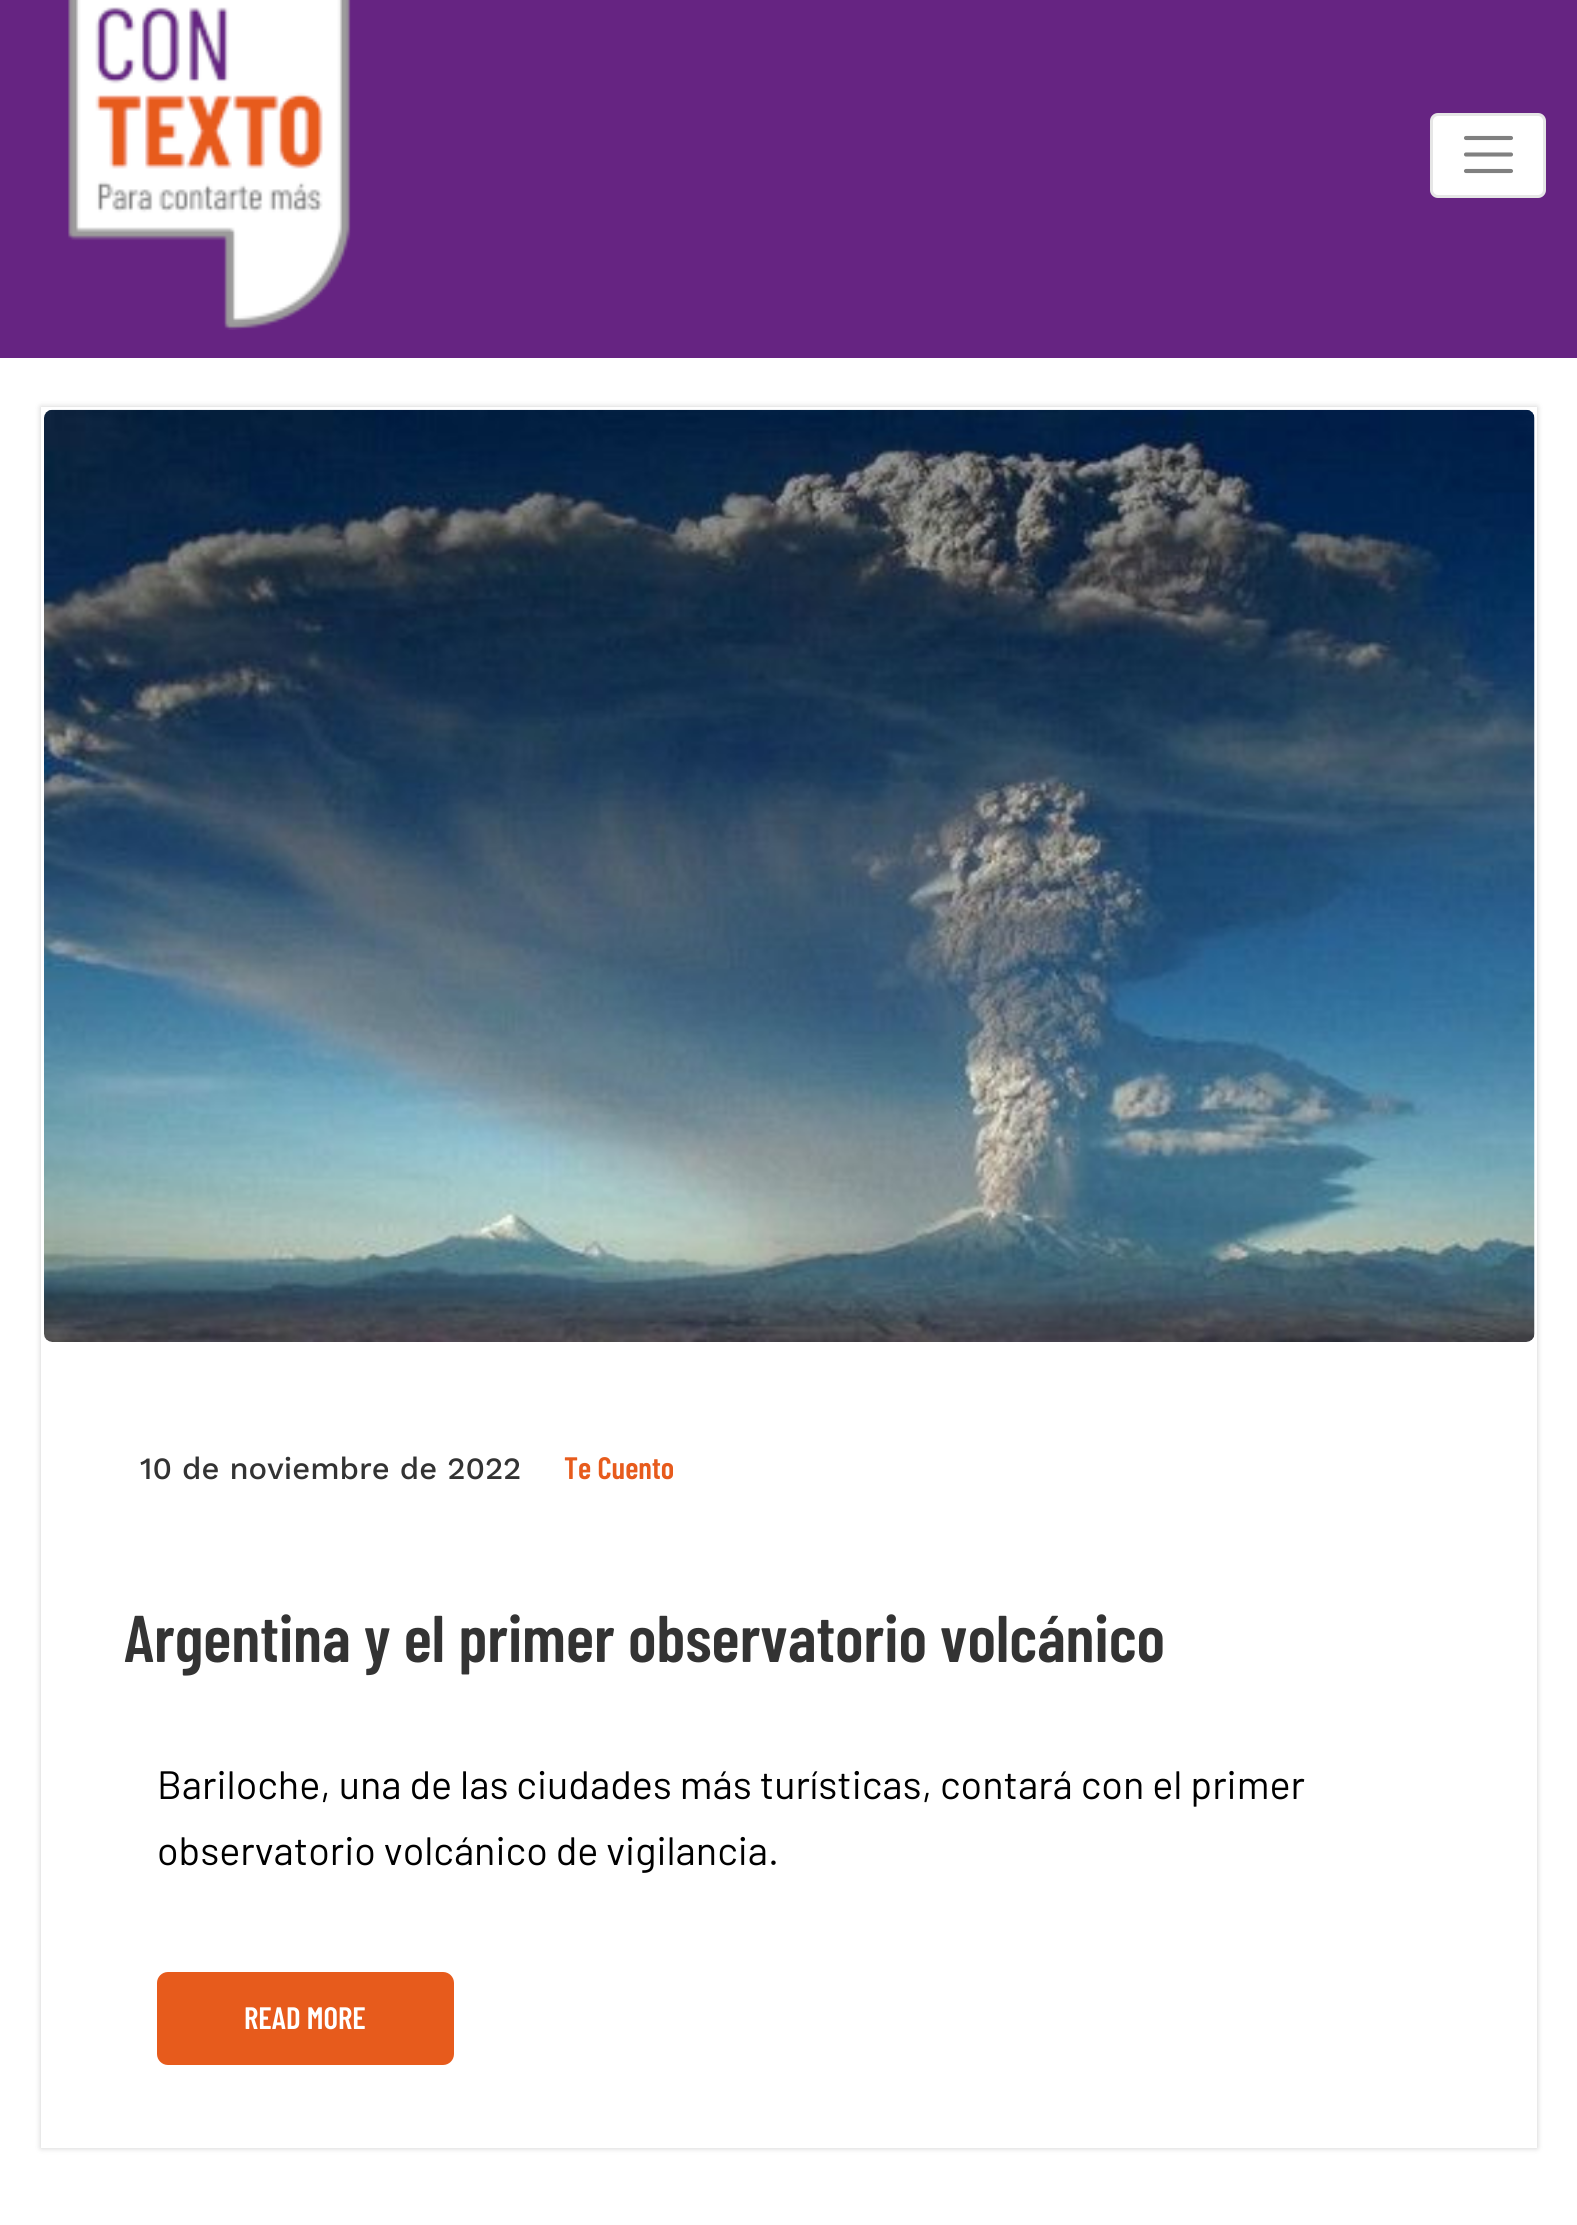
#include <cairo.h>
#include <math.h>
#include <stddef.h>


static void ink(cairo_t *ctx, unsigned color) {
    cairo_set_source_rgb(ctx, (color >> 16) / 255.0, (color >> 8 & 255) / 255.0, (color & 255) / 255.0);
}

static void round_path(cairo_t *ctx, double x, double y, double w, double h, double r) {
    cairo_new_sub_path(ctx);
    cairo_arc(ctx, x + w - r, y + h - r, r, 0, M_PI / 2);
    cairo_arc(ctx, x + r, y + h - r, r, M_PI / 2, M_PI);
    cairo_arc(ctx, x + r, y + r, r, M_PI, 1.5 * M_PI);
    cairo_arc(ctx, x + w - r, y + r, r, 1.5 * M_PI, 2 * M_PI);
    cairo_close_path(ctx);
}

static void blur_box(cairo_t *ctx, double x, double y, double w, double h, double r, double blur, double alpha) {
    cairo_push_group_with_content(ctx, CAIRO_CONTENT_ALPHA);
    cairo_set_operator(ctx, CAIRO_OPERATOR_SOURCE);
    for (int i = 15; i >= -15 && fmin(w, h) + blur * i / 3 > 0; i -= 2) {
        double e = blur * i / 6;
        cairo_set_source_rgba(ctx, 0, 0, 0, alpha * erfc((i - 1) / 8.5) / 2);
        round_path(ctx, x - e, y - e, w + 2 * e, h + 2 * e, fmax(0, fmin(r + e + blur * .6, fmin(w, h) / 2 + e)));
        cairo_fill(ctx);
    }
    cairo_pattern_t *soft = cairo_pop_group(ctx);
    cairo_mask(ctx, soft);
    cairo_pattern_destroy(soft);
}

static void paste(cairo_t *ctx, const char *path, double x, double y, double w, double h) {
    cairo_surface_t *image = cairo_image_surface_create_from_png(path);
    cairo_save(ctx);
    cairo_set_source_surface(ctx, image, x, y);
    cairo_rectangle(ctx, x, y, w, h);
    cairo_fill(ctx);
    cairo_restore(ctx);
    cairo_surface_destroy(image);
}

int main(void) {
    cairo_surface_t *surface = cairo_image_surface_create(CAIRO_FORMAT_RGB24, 1577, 2225);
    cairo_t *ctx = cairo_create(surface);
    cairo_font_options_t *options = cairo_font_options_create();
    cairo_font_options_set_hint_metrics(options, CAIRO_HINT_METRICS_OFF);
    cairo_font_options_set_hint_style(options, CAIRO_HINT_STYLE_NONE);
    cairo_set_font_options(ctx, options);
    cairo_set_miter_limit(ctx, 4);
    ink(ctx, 0xFFFFFF);
    cairo_paint(ctx);
    ink(ctx, 0x662482);
    cairo_rectangle(ctx, 0, 0, 1577, 358);
    cairo_fill(ctx);
    paste(ctx, "media/1.png", 68, 0, 283, 330);
    ink(ctx, 0xFFFFFF);
    round_path(ctx, 1430, 113, 116, 85, 8);
    cairo_fill(ctx);
    round_path(ctx, 1431.5, 114.5, 113, 82, 6.5);
    cairo_set_source_rgba(ctx, 0, 0, 0, 0.1);
    cairo_set_line_width(ctx, 3);
    cairo_stroke(ctx);
    cairo_new_path(ctx);
    cairo_move_to(ctx, 1466, 138);
    cairo_line_to(ctx, 1511, 138);
    cairo_move_to(ctx, 1466, 154.5);
    cairo_line_to(ctx, 1511, 154.5);
    cairo_move_to(ctx, 1466, 171);
    cairo_line_to(ctx, 1511, 171);
    ink(ctx, 0x808080);
    cairo_set_line_width(ctx, 4.1);
    cairo_set_line_cap(ctx, CAIRO_LINE_CAP_ROUND);
    cairo_stroke(ctx);
    ink(ctx, 0x000000);
    blur_box(ctx, 41, 407, 1496, 1741, 0, 3, 0.2);
    ink(ctx, 0xFFFFFF);
    cairo_rectangle(ctx, 41, 407, 1496, 1741);
    cairo_fill(ctx);
    paste(ctx, "media/2.png", 44, 409, 1491, 933);
    cairo_select_font_face(ctx, "Work Sans Medium", CAIRO_FONT_SLANT_NORMAL, CAIRO_FONT_WEIGHT_NORMAL);
    cairo_set_font_size(ctx, 31);
    ink(ctx, 0x333333);
    cairo_move_to(ctx, 140, 1479);
    cairo_show_text(ctx, "10 de noviembre de 2022");
    cairo_select_font_face(ctx, "Barlow Condensed SemiBold", CAIRO_FONT_SLANT_NORMAL, CAIRO_FONT_WEIGHT_NORMAL);
    ink(ctx, 0xE75B1C);
    cairo_move_to(ctx, 564, 1479);
    cairo_show_text(ctx, "Te Cuento");
    cairo_set_font_size(ctx, 66);
    ink(ctx, 0x333333);
    cairo_move_to(ctx, 124, 1662);
    cairo_show_text(ctx, "Argentina y el primer observatorio volcánico");
    cairo_select_font_face(ctx, "Barlow", CAIRO_FONT_SLANT_NORMAL, CAIRO_FONT_WEIGHT_NORMAL);
    cairo_set_font_size(ctx, 39.6);
    ink(ctx, 0x000000);
    cairo_move_to(ctx, 157, 1799);
    cairo_show_text(ctx, "Bariloche, una de las ciudades más turísticas, contará con el primer");
    cairo_move_to(ctx, 157, 1865);
    cairo_show_text(ctx, "observatorio volcánico de vigilancia.");
    ink(ctx, 0xE75B1C);
    round_path(ctx, 157, 1972, 297, 93, 11);
    cairo_fill(ctx);
    cairo_select_font_face(ctx, "Barlow Condensed SemiBold", CAIRO_FONT_SLANT_NORMAL, CAIRO_FONT_WEIGHT_NORMAL);
    cairo_set_font_size(ctx, 31);
    ink(ctx, 0xFFFFFF);
    cairo_move_to(ctx, 244, 2029);
    cairo_show_text(ctx, "READ MORE");
    cairo_surface_write_to_png(surface, "image.png");
    cairo_font_options_destroy(options);
    cairo_destroy(ctx);
    cairo_surface_destroy(surface);
    return 0;
}
